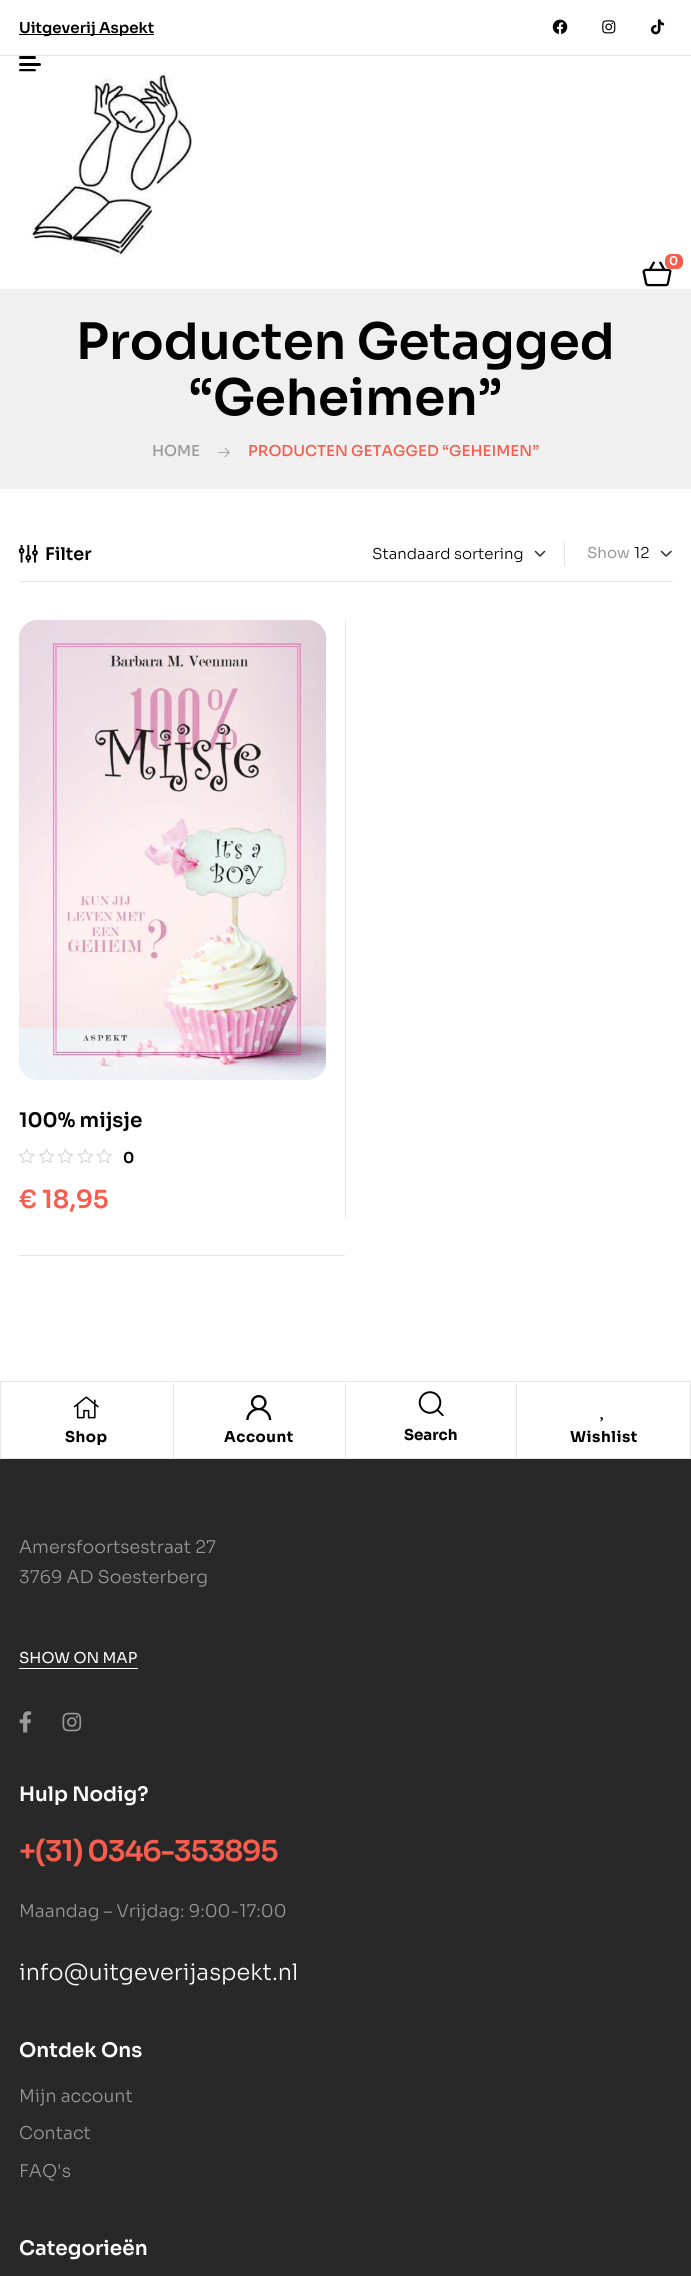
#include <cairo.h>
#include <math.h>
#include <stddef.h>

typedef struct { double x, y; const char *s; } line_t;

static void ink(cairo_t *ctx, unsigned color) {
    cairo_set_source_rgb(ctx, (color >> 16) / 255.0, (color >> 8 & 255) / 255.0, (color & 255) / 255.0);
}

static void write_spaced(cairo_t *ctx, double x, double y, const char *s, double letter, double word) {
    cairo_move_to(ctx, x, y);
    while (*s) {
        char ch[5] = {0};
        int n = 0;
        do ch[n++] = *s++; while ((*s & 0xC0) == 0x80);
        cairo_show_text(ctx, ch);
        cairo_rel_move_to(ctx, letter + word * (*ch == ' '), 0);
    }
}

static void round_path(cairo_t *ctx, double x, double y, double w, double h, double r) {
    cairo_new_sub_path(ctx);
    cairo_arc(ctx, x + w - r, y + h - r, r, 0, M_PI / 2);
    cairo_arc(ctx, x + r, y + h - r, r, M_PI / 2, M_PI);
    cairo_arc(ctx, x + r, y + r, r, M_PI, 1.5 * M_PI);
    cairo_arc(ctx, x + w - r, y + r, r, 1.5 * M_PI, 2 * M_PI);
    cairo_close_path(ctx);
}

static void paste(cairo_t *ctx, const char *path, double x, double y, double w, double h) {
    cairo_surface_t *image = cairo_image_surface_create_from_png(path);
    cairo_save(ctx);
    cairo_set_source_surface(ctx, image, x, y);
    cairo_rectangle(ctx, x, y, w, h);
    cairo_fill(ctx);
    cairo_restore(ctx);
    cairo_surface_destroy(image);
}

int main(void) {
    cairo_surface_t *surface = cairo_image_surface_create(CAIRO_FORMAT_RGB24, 691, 2276);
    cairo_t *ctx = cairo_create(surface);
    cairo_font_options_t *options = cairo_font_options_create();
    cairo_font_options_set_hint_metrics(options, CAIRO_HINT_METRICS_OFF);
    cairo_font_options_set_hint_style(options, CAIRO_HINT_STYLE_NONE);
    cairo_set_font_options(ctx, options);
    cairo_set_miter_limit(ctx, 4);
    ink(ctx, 0xFFFFFF);
    cairo_paint(ctx);
    ink(ctx, 0xE6E6E6);
    cairo_rectangle(ctx, 0, 55, 691, 1);
    cairo_fill(ctx);
    ink(ctx, 0x000000);
    cairo_rectangle(ctx, 19, 34, 135, 1);
    cairo_fill(ctx);
    cairo_select_font_face(ctx, "Sora SemiBold", CAIRO_FONT_SLANT_NORMAL, CAIRO_FONT_WEIGHT_NORMAL);
    cairo_set_font_size(ctx, 15);
    cairo_move_to(ctx, 19, 33);
    cairo_show_text(ctx, "Uitgeverij Aspekt");
    paste(ctx, "media/1.png", 552, 19, 16, 15);
    paste(ctx, "media/2.png", 602, 20, 14, 14);
    paste(ctx, "media/3.png", 650, 19, 15, 16);
    round_path(ctx, 19, 56, 17, 3, 1.5);
    cairo_fill(ctx);
    round_path(ctx, 19, 63, 22, 3, 1.5);
    cairo_fill(ctx);
    round_path(ctx, 19, 69, 17, 3, 1.5);
    cairo_fill(ctx);
    paste(ctx, "media/4.png", 19, 71, 173, 187);
    paste(ctx, "media/5.png", 642, 261, 30, 26);
    ink(ctx, 0xF65D4E);
    round_path(ctx, 665, 254, 18, 15, 6);
    cairo_fill(ctx);
    cairo_set_font_size(ctx, 12);
    ink(ctx, 0xFFFFFF);
    cairo_move_to(ctx, 669, 265);
    cairo_show_text(ctx, "0");
    ink(ctx, 0xF0F0F0);
    cairo_rectangle(ctx, 0, 289, 691, 200);
    cairo_fill(ctx);
    cairo_set_font_size(ctx, 50);
    ink(ctx, 0x000000);
    cairo_move_to(ctx, 76, 359);
    cairo_show_text(ctx, "Producten Getagged");
    cairo_move_to(ctx, 189, 415);
    cairo_show_text(ctx, "“Geheimen”");
    cairo_select_font_face(ctx, "Sora Medium", CAIRO_FONT_SLANT_NORMAL, CAIRO_FONT_WEIGHT_NORMAL);
    cairo_set_font_size(ctx, 15);
    ink(ctx, 0x999999);
    cairo_move_to(ctx, 152, 456);
    cairo_show_text(ctx, "HOME");
    paste(ctx, "media/6.png", 218, 447, 12, 11);
    ink(ctx, 0xF65D4E);
    cairo_move_to(ctx, 248, 456);
    cairo_show_text(ctx, "PRODUCTEN GETAGGED “GEHEIMEN”");
    ink(ctx, 0xE6E6E6);
    cairo_rectangle(ctx, 19, 581, 654, 1);
    cairo_fill(ctx);
    paste(ctx, "media/7.png", 18, 545, 20, 18);
    cairo_select_font_face(ctx, "Sora SemiBold", CAIRO_FONT_SLANT_NORMAL, CAIRO_FONT_WEIGHT_NORMAL);
    cairo_set_font_size(ctx, 17.5);
    ink(ctx, 0x000000);
    cairo_move_to(ctx, 45, 560);
    cairo_show_text(ctx, "Filter");
    cairo_new_path(ctx);
    cairo_move_to(ctx, 535.5, 551.5);
    cairo_line_to(ctx, 540, 556);
    cairo_line_to(ctx, 544.5, 551.5);
    ink(ctx, 0x343A40);
    cairo_set_line_width(ctx, 1.6);
    cairo_set_line_cap(ctx, CAIRO_LINE_CAP_ROUND);
    cairo_set_line_join(ctx, CAIRO_LINE_JOIN_ROUND);
    cairo_stroke(ctx);
    cairo_select_font_face(ctx, "Sora Light", CAIRO_FONT_SLANT_NORMAL, CAIRO_FONT_WEIGHT_NORMAL);
    cairo_set_font_size(ctx, 15);
    ink(ctx, 0x000000);
    cairo_move_to(ctx, 372, 559);
    cairo_show_text(ctx, "Standaard sortering");
    ink(ctx, 0xE6E6E6);
    cairo_rectangle(ctx, 564, 541, 1, 25);
    cairo_fill(ctx);
    cairo_select_font_face(ctx, "Sora", CAIRO_FONT_SLANT_NORMAL, CAIRO_FONT_WEIGHT_NORMAL);
    ink(ctx, 0x999999);
    cairo_move_to(ctx, 587, 558);
    cairo_show_text(ctx, "Show");
    cairo_new_path(ctx);
    cairo_move_to(ctx, 661.5, 551.5);
    cairo_line_to(ctx, 666, 556);
    cairo_line_to(ctx, 671, 551.5);
    ink(ctx, 0x343A40);
    cairo_stroke(ctx);
    cairo_select_font_face(ctx, "Sora Light", CAIRO_FONT_SLANT_NORMAL, CAIRO_FONT_WEIGHT_NORMAL);
    ink(ctx, 0x000000);
    cairo_move_to(ctx, 634, 558);
    cairo_show_text(ctx, "12");
    ink(ctx, 0xE6E6E6);
    cairo_rectangle(ctx, 345, 620, 1, 599);
    cairo_fill(ctx);
    paste(ctx, "media/8.png", 19, 620, 308, 460);
    cairo_select_font_face(ctx, "Sora SemiBold", CAIRO_FONT_SLANT_NORMAL, CAIRO_FONT_WEIGHT_NORMAL);
    cairo_set_font_size(ctx, 20);
    ink(ctx, 0x000000);
    cairo_move_to(ctx, 19, 1127);
    cairo_show_text(ctx, "100% mijsje");
    paste(ctx, "media/9.png", 19, 1148, 16, 16);
    paste(ctx, "media/9.png", 39, 1148, 16, 16);
    paste(ctx, "media/10.png", 57, 1148, 16, 16);
    paste(ctx, "media/10.png", 77, 1148, 16, 16);
    paste(ctx, "media/11.png", 96, 1148, 16, 16);
    cairo_set_font_size(ctx, 15);
    cairo_move_to(ctx, 123, 1163);
    cairo_show_text(ctx, "0");
    cairo_set_font_size(ctx, 25);
    ink(ctx, 0xF65D4E);
    cairo_move_to(ctx, 19, 1208);
    cairo_show_text(ctx, "€ 18,95");
    ink(ctx, 0xE6E6E6);
    cairo_rectangle(ctx, 19, 1255, 326, 1);
    cairo_fill(ctx);
    cairo_rectangle(ctx, 0.5, 1381.5, 690, 77);
    cairo_set_line_width(ctx, 1);
    cairo_set_line_cap(ctx, CAIRO_LINE_CAP_BUTT);
    cairo_set_line_join(ctx, CAIRO_LINE_JOIN_MITER);
    cairo_stroke(ctx);
    cairo_rectangle(ctx, 173, 1383, 1, 75);
    cairo_fill(ctx);
    paste(ctx, "media/12.png", 73, 1396, 26, 23);
    cairo_select_font_face(ctx, "Sora", CAIRO_FONT_SLANT_NORMAL, CAIRO_FONT_WEIGHT_BOLD);
    cairo_set_font_size(ctx, 15);
    ink(ctx, 0x000000);
    write_spaced(ctx, 65, 1442, "Shop", 0.5, 0);
    ink(ctx, 0xE6E6E6);
    cairo_rectangle(ctx, 345, 1383, 1, 75);
    cairo_fill(ctx);
    paste(ctx, "media/13.png", 246, 1395, 26, 25);
    ink(ctx, 0x000000);
    write_spaced(ctx, 224, 1442, "Account", 0.5, 0);
    ink(ctx, 0xE6E6E6);
    cairo_rectangle(ctx, 516, 1383, 1, 75);
    cairo_fill(ctx);
    paste(ctx, "media/14.png", 418, 1391, 26, 26);
    ink(ctx, 0x000000);
    cairo_move_to(ctx, 404, 1440);
    cairo_show_text(ctx, "Search");
    paste(ctx, "media/15.png", 600, 1417, 3, 5);
    write_spaced(ctx, 570, 1442, "Wishlist", 0.5, 0);
    ink(ctx, 0x282828);
    cairo_rectangle(ctx, 0, 1459, 691, 817);
    cairo_fill(ctx);
    cairo_select_font_face(ctx, "Sora Light", CAIRO_FONT_SLANT_NORMAL, CAIRO_FONT_WEIGHT_NORMAL);
    cairo_set_font_size(ctx, 17.5);
    ink(ctx, 0x999999);
    cairo_move_to(ctx, 19, 1553);
    cairo_show_text(ctx, "Amersfoortsestraat 27");
    cairo_move_to(ctx, 19, 1583);
    cairo_show_text(ctx, "3769 AD Soesterberg");
    ink(ctx, 0xFFFFFF);
    cairo_rectangle(ctx, 19, 1668, 119, 1);
    cairo_fill(ctx);
    cairo_select_font_face(ctx, "Sora", CAIRO_FONT_SLANT_NORMAL, CAIRO_FONT_WEIGHT_NORMAL);
    cairo_set_font_size(ctx, 15);
    cairo_move_to(ctx, 19, 1663);
    cairo_show_text(ctx, "SHOW ON MAP");
    paste(ctx, "media/16.png", 19, 1711, 13, 22);
    paste(ctx, "media/17.png", 62, 1712, 20, 20);
    cairo_select_font_face(ctx, "Sora SemiBold", CAIRO_FONT_SLANT_NORMAL, CAIRO_FONT_WEIGHT_NORMAL);
    cairo_set_font_size(ctx, 20);
    cairo_move_to(ctx, 19, 1801);
    cairo_show_text(ctx, "Hulp Nodig?");
    cairo_set_font_size(ctx, 28.75);
    ink(ctx, 0xF65D4E);
    write_spaced(ctx, 19, 1861, "+(31) 0346-353895", -1.25, 0);
    cairo_select_font_face(ctx, "Sora Light", CAIRO_FONT_SLANT_NORMAL, CAIRO_FONT_WEIGHT_NORMAL);
    cairo_set_font_size(ctx, 17.5);
    ink(ctx, 0x999999);
    cairo_move_to(ctx, 19, 1917);
    cairo_show_text(ctx, "Maandag – Vrijdag: 9:00-17:00");
    cairo_set_font_size(ctx, 22.5);
    ink(ctx, 0xFFFFFF);
    cairo_move_to(ctx, 19, 1980);
    cairo_show_text(ctx, "info@uitgeverijaspekt.nl");
    cairo_select_font_face(ctx, "Sora SemiBold", CAIRO_FONT_SLANT_NORMAL, CAIRO_FONT_WEIGHT_NORMAL);
    cairo_set_font_size(ctx, 20);
    cairo_move_to(ctx, 19, 2057);
    cairo_show_text(ctx, "Ontdek Ons");
    cairo_select_font_face(ctx, "Sora Light", CAIRO_FONT_SLANT_NORMAL, CAIRO_FONT_WEIGHT_NORMAL);
    cairo_set_font_size(ctx, 17.5);
    ink(ctx, 0x999999);
    {
        static const line_t items[] = {
            {19, 2102, "Mijn account"},
            {19, 2139, "Contact"},
            {19, 2177, "FAQ's"},
        };
        for (size_t i = 0; i < sizeof items / sizeof *items; i++) {
            cairo_move_to(ctx, items[i].x, items[i].y);
            cairo_show_text(ctx, items[i].s);
        }
    }
    cairo_select_font_face(ctx, "Sora SemiBold", CAIRO_FONT_SLANT_NORMAL, CAIRO_FONT_WEIGHT_NORMAL);
    cairo_set_font_size(ctx, 20);
    ink(ctx, 0xFFFFFF);
    cairo_move_to(ctx, 19, 2255);
    cairo_show_text(ctx, "Categorieën");
    cairo_surface_write_to_png(surface, "image.png");
    cairo_font_options_destroy(options);
    cairo_destroy(ctx);
    cairo_surface_destroy(surface);
    return 0;
}
